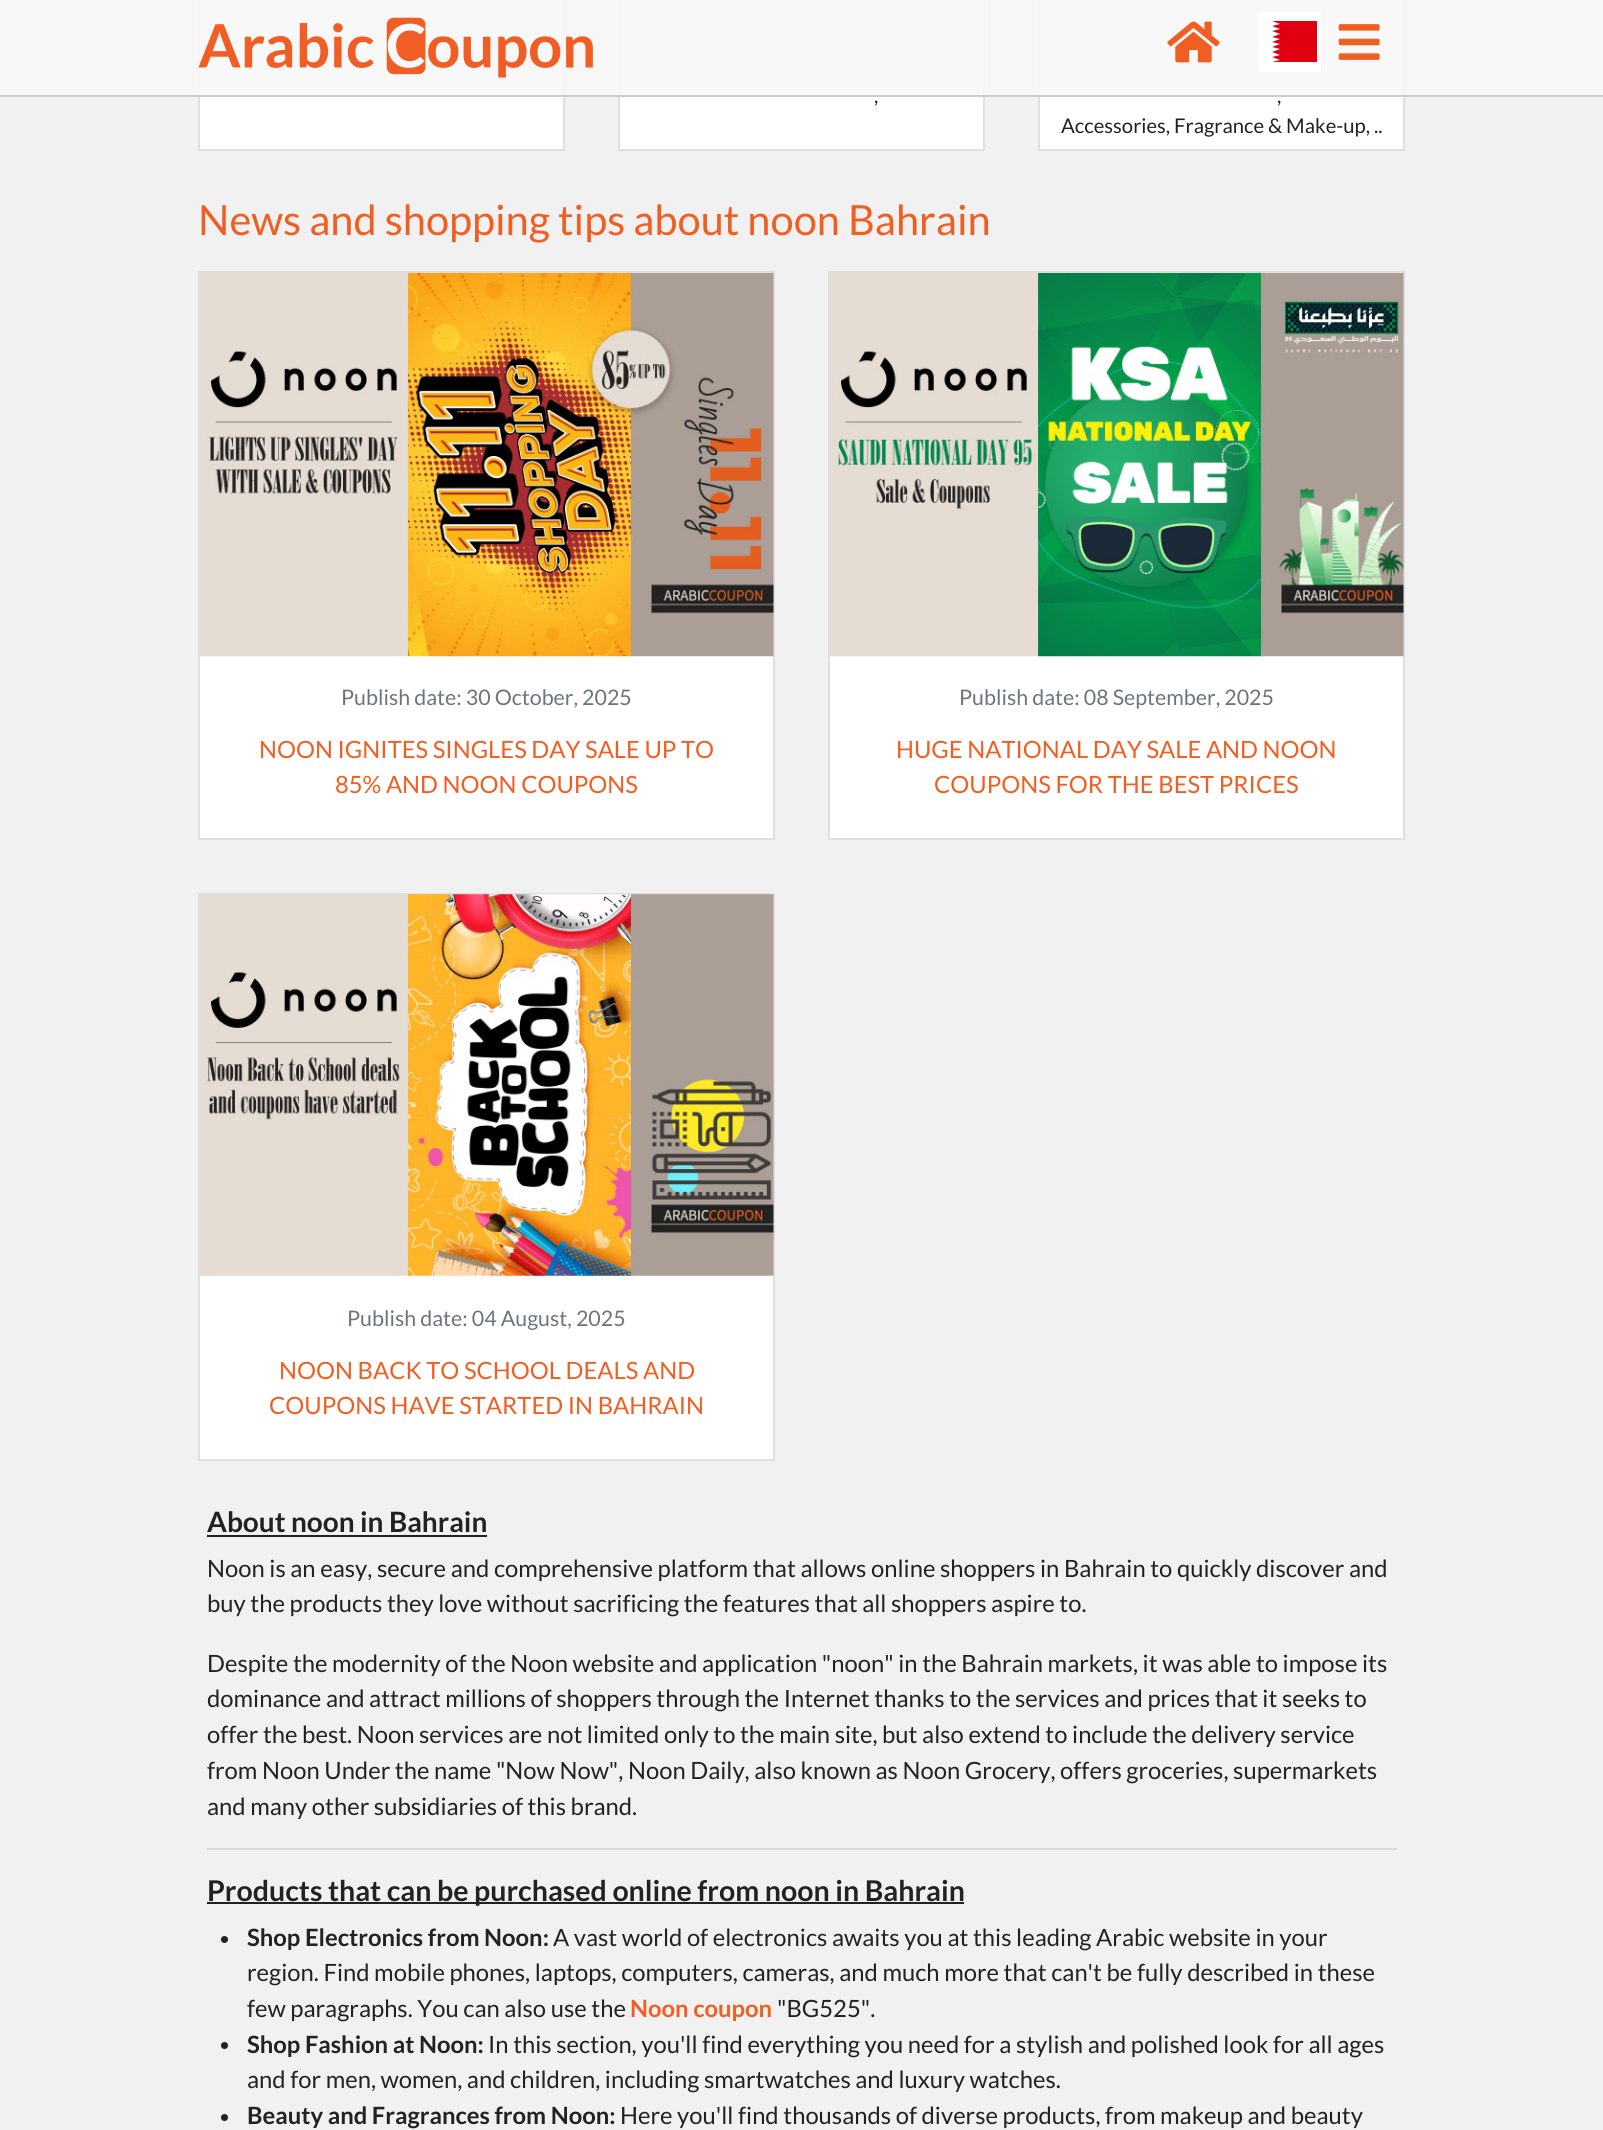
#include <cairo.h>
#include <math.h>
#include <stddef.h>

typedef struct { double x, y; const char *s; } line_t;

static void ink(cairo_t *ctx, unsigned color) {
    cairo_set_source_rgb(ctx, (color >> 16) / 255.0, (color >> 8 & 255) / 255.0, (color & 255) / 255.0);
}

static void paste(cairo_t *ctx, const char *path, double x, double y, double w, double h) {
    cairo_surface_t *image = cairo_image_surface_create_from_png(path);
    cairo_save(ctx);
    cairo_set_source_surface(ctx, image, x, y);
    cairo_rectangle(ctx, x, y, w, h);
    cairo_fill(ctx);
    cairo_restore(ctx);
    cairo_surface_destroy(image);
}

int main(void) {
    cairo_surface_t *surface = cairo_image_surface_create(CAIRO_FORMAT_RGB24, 1603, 2130);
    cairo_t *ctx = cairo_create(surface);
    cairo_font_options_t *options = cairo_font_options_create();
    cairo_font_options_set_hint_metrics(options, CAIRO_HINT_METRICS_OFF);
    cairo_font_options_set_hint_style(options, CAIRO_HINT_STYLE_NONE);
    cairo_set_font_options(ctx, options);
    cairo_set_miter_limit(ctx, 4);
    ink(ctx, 0xF1F1F1);
    cairo_paint(ctx);
    ink(ctx, 0xFFFFFF);
    cairo_rectangle(ctx, 199, -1, 365, 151);
    cairo_fill_preserve(ctx);
    ink(ctx, 0xDFDFDF);
    cairo_stroke(ctx);
    ink(ctx, 0xFFFFFF);
    cairo_rectangle(ctx, 619, -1, 365, 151);
    cairo_fill_preserve(ctx);
    ink(ctx, 0xDFDFDF);
    cairo_stroke(ctx);
    ink(ctx, 0xFFFFFF);
    cairo_rectangle(ctx, 1039, -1, 365, 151);
    cairo_fill_preserve(ctx);
    ink(ctx, 0xDFDFDF);
    cairo_stroke(ctx);
    cairo_set_source_rgba(ctx, 0.969, 0.969, 0.969, 0.9);
    cairo_rectangle(ctx, 0, 0, 1603, 96);
    cairo_fill(ctx);
    cairo_set_source_rgba(ctx, 0.784, 0.784, 0.784, 0.9);
    cairo_rectangle(ctx, 0, 95, 1603, 2);
    cairo_fill(ctx);
    paste(ctx, "media/1.png", 198, 17, 395, 61);
    paste(ctx, "media/2.png", 1167, 21, 53, 42);
    ink(ctx, 0xFFFFFF);
    cairo_rectangle(ctx, 1258, 12, 63, 60);
    cairo_fill(ctx);
    ink(ctx, 0xE10011);
    cairo_rectangle(ctx, 1272, 21, 45, 41);
    cairo_fill(ctx);
    ink(ctx, 0xFFFFFF);
    cairo_new_path(ctx);
    cairo_move_to(ctx, 1272, 62);
    cairo_line_to(ctx, 1280, 60);
    cairo_line_to(ctx, 1272, 57);
    cairo_line_to(ctx, 1280, 55);
    cairo_line_to(ctx, 1272, 52);
    cairo_line_to(ctx, 1280, 49);
    cairo_line_to(ctx, 1272, 47);
    cairo_line_to(ctx, 1280, 44);
    cairo_line_to(ctx, 1272, 42);
    cairo_line_to(ctx, 1280, 39);
    cairo_line_to(ctx, 1272, 37);
    cairo_line_to(ctx, 1280, 34);
    cairo_line_to(ctx, 1272, 31);
    cairo_line_to(ctx, 1280, 29);
    cairo_line_to(ctx, 1272, 26);
    cairo_line_to(ctx, 1280, 24);
    cairo_line_to(ctx, 1272, 21);
    cairo_line_to(ctx, 1262, 21);
    cairo_line_to(ctx, 1262, 62);
    cairo_close_path(ctx);
    cairo_fill(ctx);
    paste(ctx, "media/3.png", 1338, 24, 42, 36);
    cairo_select_font_face(ctx, "Lato", CAIRO_FONT_SLANT_NORMAL, CAIRO_FONT_WEIGHT_NORMAL);
    cairo_set_font_size(ctx, 20.25);
    ink(ctx, 0x222222);
    {
        static const line_t items[] = {
            {874, 103, ","},
            {1277, 103, ","},
            {1061, 133, "Accessories, Fragrance & Make-up, .."},
        };
        for (size_t i = 0; i < sizeof items / sizeof *items; i++) {
            cairo_move_to(ctx, items[i].x, items[i].y);
            cairo_show_text(ctx, items[i].s);
        }
    }
    cairo_set_font_size(ctx, 41.6);
    ink(ctx, 0xF15E22);
    cairo_move_to(ctx, 198, 235);
    cairo_show_text(ctx, "News and shopping tips about noon Bahrain");
    ink(ctx, 0xFFFFFF);
    cairo_rectangle(ctx, 200, 656, 573, 182);
    cairo_fill(ctx);
    cairo_rectangle(ctx, 199, 272, 575, 567);
    ink(ctx, 0xDFDFDF);
    cairo_stroke(ctx);
    paste(ctx, "media/4.png", 199, 273, 575, 384);
    cairo_set_font_size(ctx, 21.4);
    ink(ctx, 0x6C757D);
    cairo_move_to(ctx, 341, 705);
    cairo_show_text(ctx, "Publish date: 30 October, 2025");
    cairo_set_font_size(ctx, 23.8);
    ink(ctx, 0xF15E22);
    cairo_move_to(ctx, 259, 758);
    cairo_show_text(ctx, "NOON IGNITES SINGLES DAY SALE UP TO");
    cairo_move_to(ctx, 335, 793);
    cairo_show_text(ctx, "85% AND NOON COUPONS");
    ink(ctx, 0xFFFFFF);
    cairo_rectangle(ctx, 830, 656, 573, 182);
    cairo_fill(ctx);
    cairo_rectangle(ctx, 829, 272, 575, 567);
    ink(ctx, 0xDFDFDF);
    cairo_stroke(ctx);
    paste(ctx, "media/5.png", 829, 273, 575, 384);
    cairo_set_font_size(ctx, 21.4);
    ink(ctx, 0x6C757D);
    cairo_move_to(ctx, 959, 705);
    cairo_show_text(ctx, "Publish date: 08 September, 2025");
    cairo_set_font_size(ctx, 23.8);
    ink(ctx, 0xF15E22);
    cairo_move_to(ctx, 896, 758);
    cairo_show_text(ctx, "HUGE NATIONAL DAY SALE AND NOON");
    cairo_move_to(ctx, 934, 793);
    cairo_show_text(ctx, "COUPONS FOR THE BEST PRICES");
    ink(ctx, 0xFFFFFF);
    cairo_rectangle(ctx, 200, 1275, 573, 184);
    cairo_fill(ctx);
    cairo_rectangle(ctx, 199, 894, 575, 566);
    ink(ctx, 0xDFDFDF);
    cairo_stroke(ctx);
    paste(ctx, "media/6.png", 199, 894, 575, 382);
    cairo_set_font_size(ctx, 21.4);
    ink(ctx, 0x6C757D);
    cairo_move_to(ctx, 347, 1326);
    cairo_show_text(ctx, "Publish date: 04 August, 2025");
    cairo_set_font_size(ctx, 23.8);
    ink(ctx, 0xF15E22);
    cairo_move_to(ctx, 279, 1379);
    cairo_show_text(ctx, "NOON BACK TO SCHOOL DEALS AND");
    cairo_move_to(ctx, 269, 1414);
    cairo_show_text(ctx, "COUPONS HAVE STARTED IN BAHRAIN");
    cairo_select_font_face(ctx, "Lato", CAIRO_FONT_SLANT_NORMAL, CAIRO_FONT_WEIGHT_BOLD);
    cairo_set_font_size(ctx, 28);
    ink(ctx, 0x222222);
    cairo_move_to(ctx, 207, 1532);
    cairo_show_text(ctx, "About noon in Bahrain");
    cairo_rectangle(ctx, 207, 1535, 280, 2);
    cairo_fill(ctx);
    cairo_select_font_face(ctx, "Lato", CAIRO_FONT_SLANT_NORMAL, CAIRO_FONT_WEIGHT_NORMAL);
    cairo_set_font_size(ctx, 23.8);
    {
        static const line_t items[] = {
            {207, 1577, "Noon is an easy, secure and comprehensive platform that allows online shoppers in Bahrain to quickly discover and"},
            {207, 1612, "buy the products they love without sacrificing the features that all shoppers aspire to."},
            {207, 1672, "Despite the modernity of the Noon website and application \"noon\" in the Bahrain markets, it was able to impose its"},
            {207, 1707, "dominance and attract millions of shoppers through the Internet thanks to the services and prices that it seeks to"},
            {207, 1743, "offer the best. Noon services are not limited only to the main site, but also extend to include the delivery service"},
            {207, 1779, "from Noon Under the name \"Now Now\", Noon Daily, also known as Noon Grocery, offers groceries, supermarkets"},
            {207, 1815, "and many other subsidiaries of this brand."},
        };
        for (size_t i = 0; i < sizeof items / sizeof *items; i++) {
            cairo_move_to(ctx, items[i].x, items[i].y);
            cairo_show_text(ctx, items[i].s);
        }
    }
    ink(ctx, 0xD9D9D9);
    cairo_rectangle(ctx, 207, 1848, 1190, 2);
    cairo_fill(ctx);
    ink(ctx, 0x222222);
    cairo_rectangle(ctx, 207, 1902, 757, 2);
    cairo_fill(ctx);
    cairo_select_font_face(ctx, "Lato", CAIRO_FONT_SLANT_NORMAL, CAIRO_FONT_WEIGHT_BOLD);
    cairo_set_font_size(ctx, 28.55);
    cairo_move_to(ctx, 207, 1901);
    cairo_show_text(ctx, "Products that can be purchased online from noon in Bahrain");
    cairo_new_path(ctx);
    cairo_arc(ctx, 224.5, 1939.5, 3.5, 0, 2 * M_PI);
    cairo_fill(ctx);
    cairo_set_font_size(ctx, 23.8);
    cairo_move_to(ctx, 247, 1946);
    cairo_show_text(ctx, "Shop Electronics from Noon:");
    cairo_select_font_face(ctx, "Lato", CAIRO_FONT_SLANT_NORMAL, CAIRO_FONT_WEIGHT_NORMAL);
    {
        static const line_t items[] = {
            {553, 1946, "A vast world of electronics awaits you at this leading Arabic website in your"},
            {247, 1981, "region. Find mobile phones, laptops, computers, cameras, and much more that can't be fully described in these"},
            {247, 2017, "few paragraphs. You can also use the"},
        };
        for (size_t i = 0; i < sizeof items / sizeof *items; i++) {
            cairo_move_to(ctx, items[i].x, items[i].y);
            cairo_show_text(ctx, items[i].s);
        }
    }
    cairo_select_font_face(ctx, "Lato", CAIRO_FONT_SLANT_NORMAL, CAIRO_FONT_WEIGHT_BOLD);
    ink(ctx, 0xF15E22);
    cairo_move_to(ctx, 630, 2017);
    cairo_show_text(ctx, "Noon coupon");
    cairo_select_font_face(ctx, "Lato", CAIRO_FONT_SLANT_NORMAL, CAIRO_FONT_WEIGHT_NORMAL);
    ink(ctx, 0x222222);
    cairo_move_to(ctx, 777, 2017);
    cairo_show_text(ctx, "\"BG525\".");
    cairo_new_path(ctx);
    cairo_arc(ctx, 224.5, 2045.5, 3.5, 0, 2 * M_PI);
    cairo_fill(ctx);
    cairo_select_font_face(ctx, "Lato", CAIRO_FONT_SLANT_NORMAL, CAIRO_FONT_WEIGHT_BOLD);
    cairo_move_to(ctx, 247, 2053);
    cairo_show_text(ctx, "Shop Fashion at Noon:");
    cairo_select_font_face(ctx, "Lato", CAIRO_FONT_SLANT_NORMAL, CAIRO_FONT_WEIGHT_NORMAL);
    cairo_move_to(ctx, 488, 2053);
    cairo_show_text(ctx, "In this section, you'll find everything you need for a stylish and polished look for all ages");
    cairo_move_to(ctx, 247, 2088);
    cairo_show_text(ctx, "and for men, women, and children, including smartwatches and luxury watches.");
    cairo_new_path(ctx);
    cairo_arc(ctx, 224.5, 2117.5, 3.5, 0, 2 * M_PI);
    cairo_fill(ctx);
    cairo_select_font_face(ctx, "Lato", CAIRO_FONT_SLANT_NORMAL, CAIRO_FONT_WEIGHT_BOLD);
    cairo_move_to(ctx, 247, 2124);
    cairo_show_text(ctx, "Beauty and Fragrances from Noon:");
    cairo_select_font_face(ctx, "Lato", CAIRO_FONT_SLANT_NORMAL, CAIRO_FONT_WEIGHT_NORMAL);
    cairo_move_to(ctx, 620, 2124);
    cairo_show_text(ctx, "Here you'll find thousands of diverse products, from makeup and beauty");
    cairo_surface_write_to_png(surface, "image.png");
    cairo_font_options_destroy(options);
    cairo_destroy(ctx);
    cairo_surface_destroy(surface);
    return 0;
}
